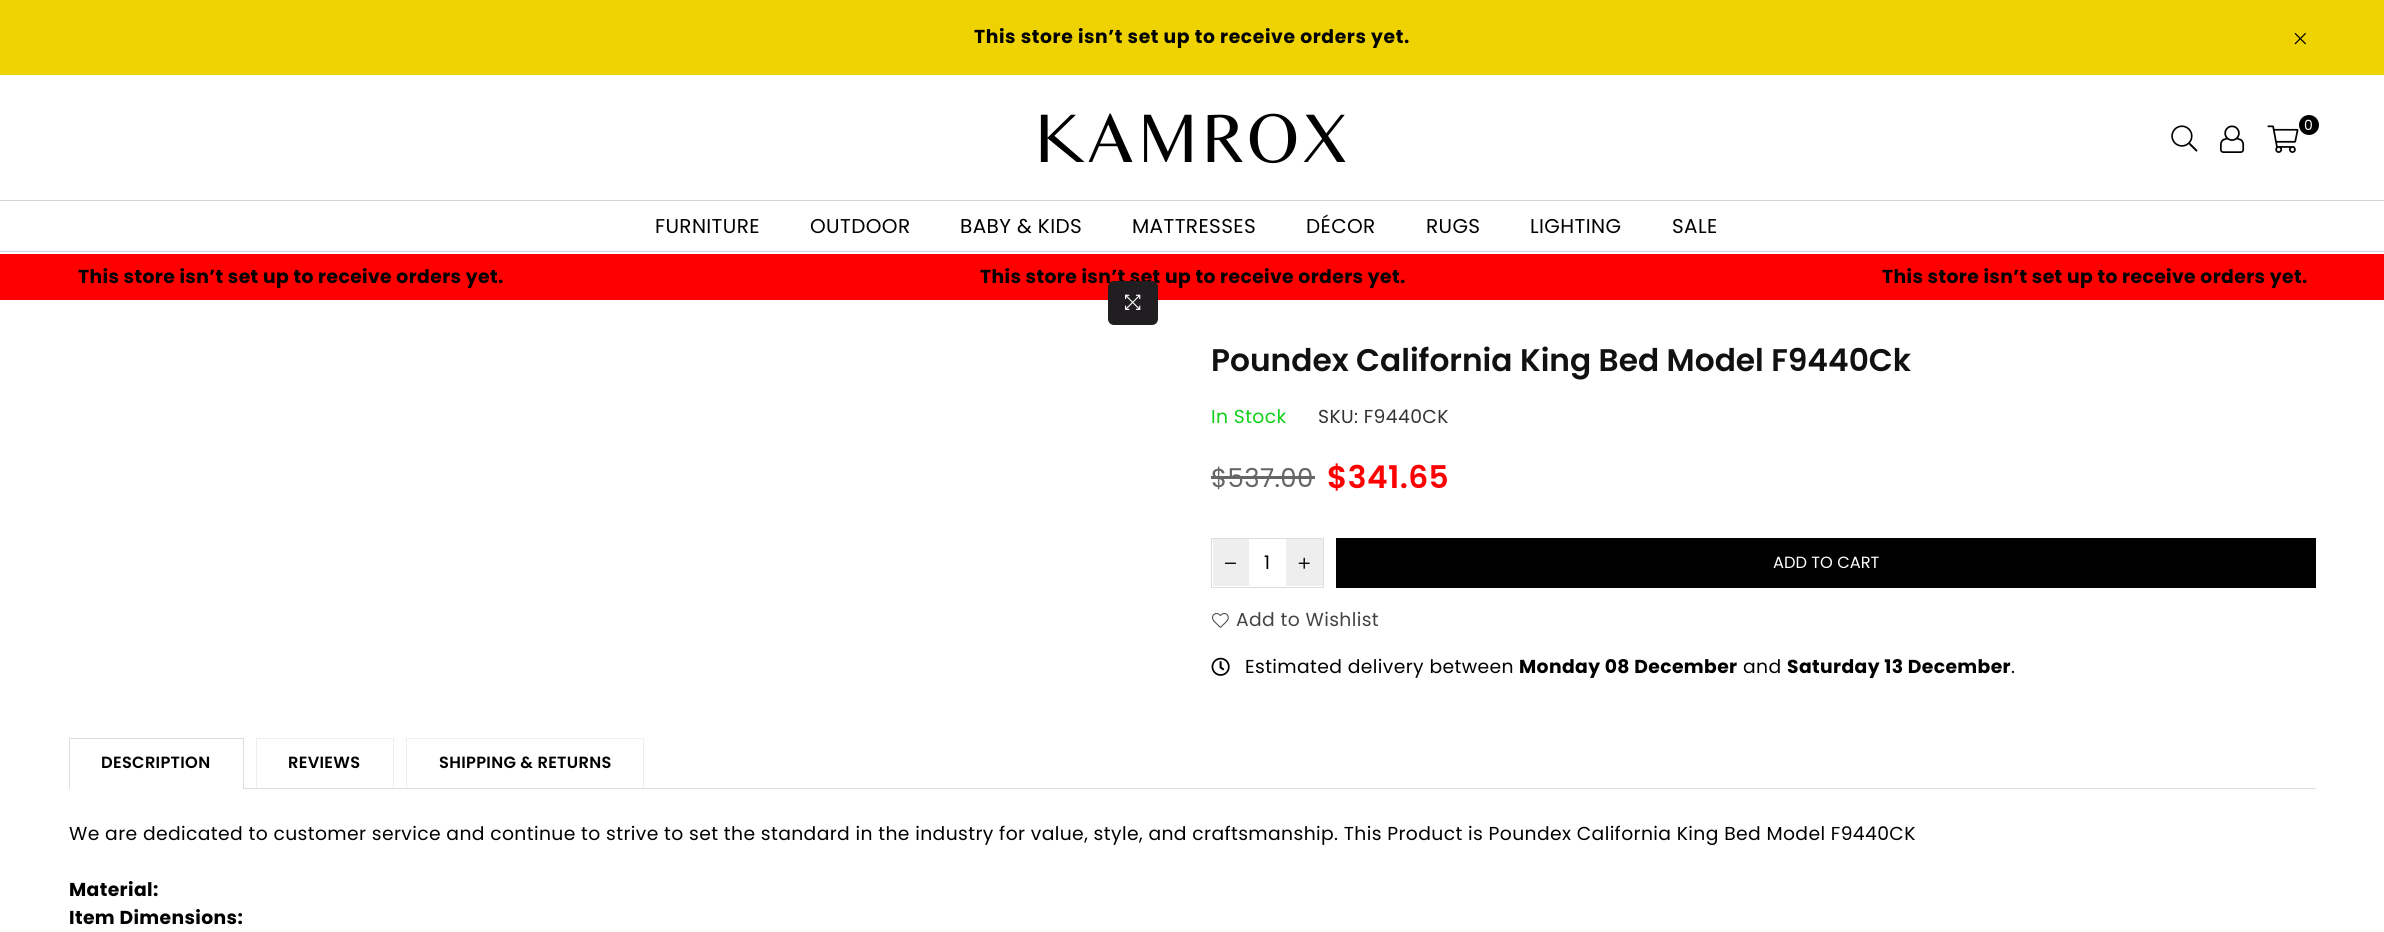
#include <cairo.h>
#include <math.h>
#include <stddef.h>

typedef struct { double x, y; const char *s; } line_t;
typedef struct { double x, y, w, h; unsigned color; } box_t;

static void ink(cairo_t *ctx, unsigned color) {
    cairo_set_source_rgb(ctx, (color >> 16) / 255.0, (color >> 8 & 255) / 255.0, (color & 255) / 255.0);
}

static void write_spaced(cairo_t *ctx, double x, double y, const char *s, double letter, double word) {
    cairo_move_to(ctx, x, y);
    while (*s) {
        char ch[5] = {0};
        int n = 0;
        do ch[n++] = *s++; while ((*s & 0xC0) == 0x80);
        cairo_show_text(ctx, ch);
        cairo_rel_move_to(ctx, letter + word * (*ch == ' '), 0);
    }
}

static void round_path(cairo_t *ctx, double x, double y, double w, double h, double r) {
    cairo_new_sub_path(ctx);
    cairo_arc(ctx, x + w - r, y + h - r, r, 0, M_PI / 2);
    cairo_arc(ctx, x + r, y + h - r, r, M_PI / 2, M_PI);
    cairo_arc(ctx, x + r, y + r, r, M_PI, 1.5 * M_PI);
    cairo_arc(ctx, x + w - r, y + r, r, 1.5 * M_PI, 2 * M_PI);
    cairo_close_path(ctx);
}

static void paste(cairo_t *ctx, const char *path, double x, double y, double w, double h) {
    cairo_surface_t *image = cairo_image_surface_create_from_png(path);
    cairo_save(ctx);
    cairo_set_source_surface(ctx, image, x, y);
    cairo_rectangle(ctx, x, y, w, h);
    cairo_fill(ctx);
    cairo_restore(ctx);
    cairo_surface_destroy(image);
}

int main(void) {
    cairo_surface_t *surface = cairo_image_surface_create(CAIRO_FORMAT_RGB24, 2384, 932);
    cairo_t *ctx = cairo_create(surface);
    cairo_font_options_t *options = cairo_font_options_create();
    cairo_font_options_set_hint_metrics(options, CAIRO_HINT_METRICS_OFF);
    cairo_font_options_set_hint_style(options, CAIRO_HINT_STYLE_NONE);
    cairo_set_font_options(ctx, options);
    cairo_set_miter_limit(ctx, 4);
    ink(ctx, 0xFFFFFF);
    cairo_paint(ctx);
    ink(ctx, 0xEED202);
    cairo_rectangle(ctx, 0, 0, 2384, 75);
    cairo_fill(ctx);
    cairo_select_font_face(ctx, "Poppins", CAIRO_FONT_SLANT_NORMAL, CAIRO_FONT_WEIGHT_BOLD);
    cairo_set_font_size(ctx, 18.75);
    ink(ctx, 0x000000);
    write_spaced(ctx, 974, 43, "This store isn’t set up to receive orders yet.", 0.6, 0);
    paste(ctx, "media/1.png", 2294, 33, 12, 12);
    paste(ctx, "media/2.png", 1040, 113, 306, 51);
    paste(ctx, "media/3.png", 2171, 125, 27, 27);
    paste(ctx, "media/4.png", 2220, 125, 25, 28);
    paste(ctx, "media/5.png", 2267, 125, 32, 28);
    cairo_arc(ctx, 2309, 125, 10, 0, 2 * M_PI);
    cairo_fill(ctx);
    cairo_select_font_face(ctx, "Poppins", CAIRO_FONT_SLANT_NORMAL, CAIRO_FONT_WEIGHT_NORMAL);
    cairo_set_font_size(ctx, 14);
    ink(ctx, 0xFFFFFF);
    write_spaced(ctx, 2304, 130, "0", 0.38, 0);
    ink(ctx, 0xD1D1D6);
    cairo_rectangle(ctx, 0, 200, 2384, 1);
    cairo_fill(ctx);
    cairo_rectangle(ctx, 0, 251, 2384, 1);
    cairo_fill(ctx);
    cairo_set_font_size(ctx, 20);
    ink(ctx, 0x000000);
    {
        static const line_t items[] = {
            {655, 233, "FURNITURE"},
            {810, 233, "OUTDOOR"},
            {960, 233, "BABY & KIDS"},
            {1132, 233, "MATTRESSES"},
            {1306, 233, "DÉCOR"},
            {1426, 233, "RUGS"},
            {1530, 233, "LIGHTING"},
            {1672, 233, "SALE"},
        };
        for (size_t i = 0; i < sizeof items / sizeof *items; i++) {
            write_spaced(ctx, items[i].x, items[i].y, items[i].s, 0.38, 0);
        }
    }
    ink(ctx, 0xFF0000);
    cairo_rectangle(ctx, 0, 254, 2384, 46);
    cairo_fill(ctx);
    cairo_select_font_face(ctx, "Poppins", CAIRO_FONT_SLANT_NORMAL, CAIRO_FONT_WEIGHT_BOLD);
    cairo_set_font_size(ctx, 18.75);
    ink(ctx, 0x000000);
    {
        static const line_t items[] = {
            {78, 283, "This store isn’t set up to receive orders yet."},
            {980, 283, "This store isn’t set up to receive orders yet."},
            {1882, 283, "This store isn’t set up to receive orders yet."},
        };
        for (size_t i = 0; i < sizeof items / sizeof *items; i++) {
            write_spaced(ctx, items[i].x, items[i].y, items[i].s, 0.38, 0);
        }
    }
    ink(ctx, 0x211E22);
    round_path(ctx, 1108, 281, 50, 44, 6);
    cairo_fill(ctx);
    paste(ctx, "media/6.png", 1125, 294, 16, 16);
    cairo_select_font_face(ctx, "Poppins SemiBold", CAIRO_FONT_SLANT_NORMAL, CAIRO_FONT_WEIGHT_NORMAL);
    cairo_set_font_size(ctx, 31.25);
    ink(ctx, 0x111111);
    cairo_move_to(ctx, 1211, 371);
    cairo_show_text(ctx, "Poundex California King Bed Model F9440Ck");
    cairo_select_font_face(ctx, "Poppins", CAIRO_FONT_SLANT_NORMAL, CAIRO_FONT_WEIGHT_NORMAL);
    cairo_set_font_size(ctx, 18.75);
    ink(ctx, 0x0FD016);
    write_spaced(ctx, 1211, 423, "In Stock", 0.38, 0);
    ink(ctx, 0x333333);
    write_spaced(ctx, 1318, 423, "SKU: F9440CK", 0.38, 0);
    cairo_set_font_size(ctx, 26);
    ink(ctx, 0x666666);
    write_spaced(ctx, 1211, 487, "$537.00", 0.38, 0);
    cairo_rectangle(ctx, 1211, 476, 104, 3);
    cairo_fill(ctx);
    cairo_select_font_face(ctx, "Poppins SemiBold", CAIRO_FONT_SLANT_NORMAL, CAIRO_FONT_WEIGHT_NORMAL);
    cairo_set_font_size(ctx, 31.25);
    ink(ctx, 0xFF0000);
    write_spaced(ctx, 1327, 488, "$341.65", 0.38, 0);
    cairo_rectangle(ctx, 1211.5, 538.5, 112, 49);
    ink(ctx, 0xDDDDDD);
    cairo_set_line_width(ctx, 1);
    cairo_stroke(ctx);
    ink(ctx, 0xEEEEEE);
    cairo_rectangle(ctx, 1213, 539, 36, 47);
    cairo_fill(ctx);
    paste(ctx, "media/7.png", 1225, 562, 11, 2);
    cairo_select_font_face(ctx, "Poppins", CAIRO_FONT_SLANT_NORMAL, CAIRO_FONT_WEIGHT_NORMAL);
    cairo_set_font_size(ctx, 18.75);
    ink(ctx, 0x000000);
    cairo_move_to(ctx, 1264, 569);
    cairo_show_text(ctx, "1");
    ink(ctx, 0xEEEEEE);
    cairo_rectangle(ctx, 1286, 539, 37, 47);
    cairo_fill(ctx);
    paste(ctx, "media/8.png", 1298, 557, 12, 12);
    ink(ctx, 0x000000);
    cairo_rectangle(ctx, 1336, 538, 980, 50);
    cairo_fill(ctx);
    cairo_set_font_size(ctx, 16.25);
    ink(ctx, 0xFFFFFF);
    cairo_move_to(ctx, 1773, 568);
    cairo_show_text(ctx, "ADD TO CART");
    paste(ctx, "media/9.png", 1212, 613, 17, 15);
    cairo_set_font_size(ctx, 18.75);
    ink(ctx, 0x444444);
    write_spaced(ctx, 1236, 626, "Add to Wishlist", 0.38, 0);
    paste(ctx, "media/10.png", 1211, 657, 19, 19);
    ink(ctx, 0x000000);
    write_spaced(ctx, 1245, 673, "Estimated delivery between", 0.38, 0);
    cairo_select_font_face(ctx, "Poppins", CAIRO_FONT_SLANT_NORMAL, CAIRO_FONT_WEIGHT_BOLD);
    write_spaced(ctx, 1519, 673, "Monday 08 December", 0.38, 0);
    cairo_select_font_face(ctx, "Poppins", CAIRO_FONT_SLANT_NORMAL, CAIRO_FONT_WEIGHT_NORMAL);
    write_spaced(ctx, 1743, 673, "and", 0.38, 0);
    cairo_select_font_face(ctx, "Poppins", CAIRO_FONT_SLANT_NORMAL, CAIRO_FONT_WEIGHT_BOLD);
    write_spaced(ctx, 1787, 673, "Saturday 13 December", 0.38, 0);
    cairo_select_font_face(ctx, "Poppins", CAIRO_FONT_SLANT_NORMAL, CAIRO_FONT_WEIGHT_NORMAL);
    write_spaced(ctx, 2011, 673, ".", 0.38, 0);
    {
        static const box_t items[] = {
            {69, 788, 2247, 1, 0xDDDDDD},
            {69, 738, 175, 1, 0xDDDDDD},
            {243, 738, 1, 50, 0xDDDDDD},
            {69, 738, 1, 50, 0xDDDDDD},
        };
        for (size_t i = 0; i < sizeof items / sizeof *items; i++) {
            ink(ctx, items[i].color);
            cairo_rectangle(ctx, items[i].x, items[i].y, items[i].w, items[i].h);
            cairo_fill(ctx);
        }
    }
    cairo_select_font_face(ctx, "Poppins SemiBold", CAIRO_FONT_SLANT_NORMAL, CAIRO_FONT_WEIGHT_NORMAL);
    cairo_set_font_size(ctx, 16.25);
    ink(ctx, 0x000000);
    write_spaced(ctx, 101, 768, "DESCRIPTION", 0.3, 0);
    {
        static const box_t items[] = {
            {70, 788, 173, 1, 0xFFFFFF},
            {256, 738, 138, 1, 0xEEEEEE},
            {393, 738, 1, 50, 0xEEEEEE},
            {256, 738, 1, 50, 0xEEEEEE},
        };
        for (size_t i = 0; i < sizeof items / sizeof *items; i++) {
            ink(ctx, items[i].color);
            cairo_rectangle(ctx, items[i].x, items[i].y, items[i].w, items[i].h);
            cairo_fill(ctx);
        }
    }
    ink(ctx, 0x000000);
    write_spaced(ctx, 288, 768, "REVIEWS", 0.3, 0);
    {
        static const box_t items[] = {
            {406, 738, 238, 1, 0xEEEEEE},
            {643, 738, 1, 50, 0xEEEEEE},
            {406, 738, 1, 50, 0xEEEEEE},
        };
        for (size_t i = 0; i < sizeof items / sizeof *items; i++) {
            ink(ctx, items[i].color);
            cairo_rectangle(ctx, items[i].x, items[i].y, items[i].w, items[i].h);
            cairo_fill(ctx);
        }
    }
    ink(ctx, 0x000000);
    write_spaced(ctx, 439, 768, "SHIPPING & RETURNS", 0.3, 0);
    cairo_select_font_face(ctx, "Poppins", CAIRO_FONT_SLANT_NORMAL, CAIRO_FONT_WEIGHT_NORMAL);
    cairo_set_font_size(ctx, 18.75);
    write_spaced(ctx, 69, 840, "We are dedicated to customer service and continue to strive to set the standard in the industry for value, style, and craftsmanship. This Product is Poundex California King Bed Model F9440CK", 0.38, 0);
    cairo_select_font_face(ctx, "Poppins", CAIRO_FONT_SLANT_NORMAL, CAIRO_FONT_WEIGHT_BOLD);
    write_spaced(ctx, 69, 896, "Material:", 0.38, 0);
    write_spaced(ctx, 69, 924, "Item Dimensions:", 0.38, 0);
    cairo_surface_write_to_png(surface, "image.png");
    cairo_font_options_destroy(options);
    cairo_destroy(ctx);
    cairo_surface_destroy(surface);
    return 0;
}
